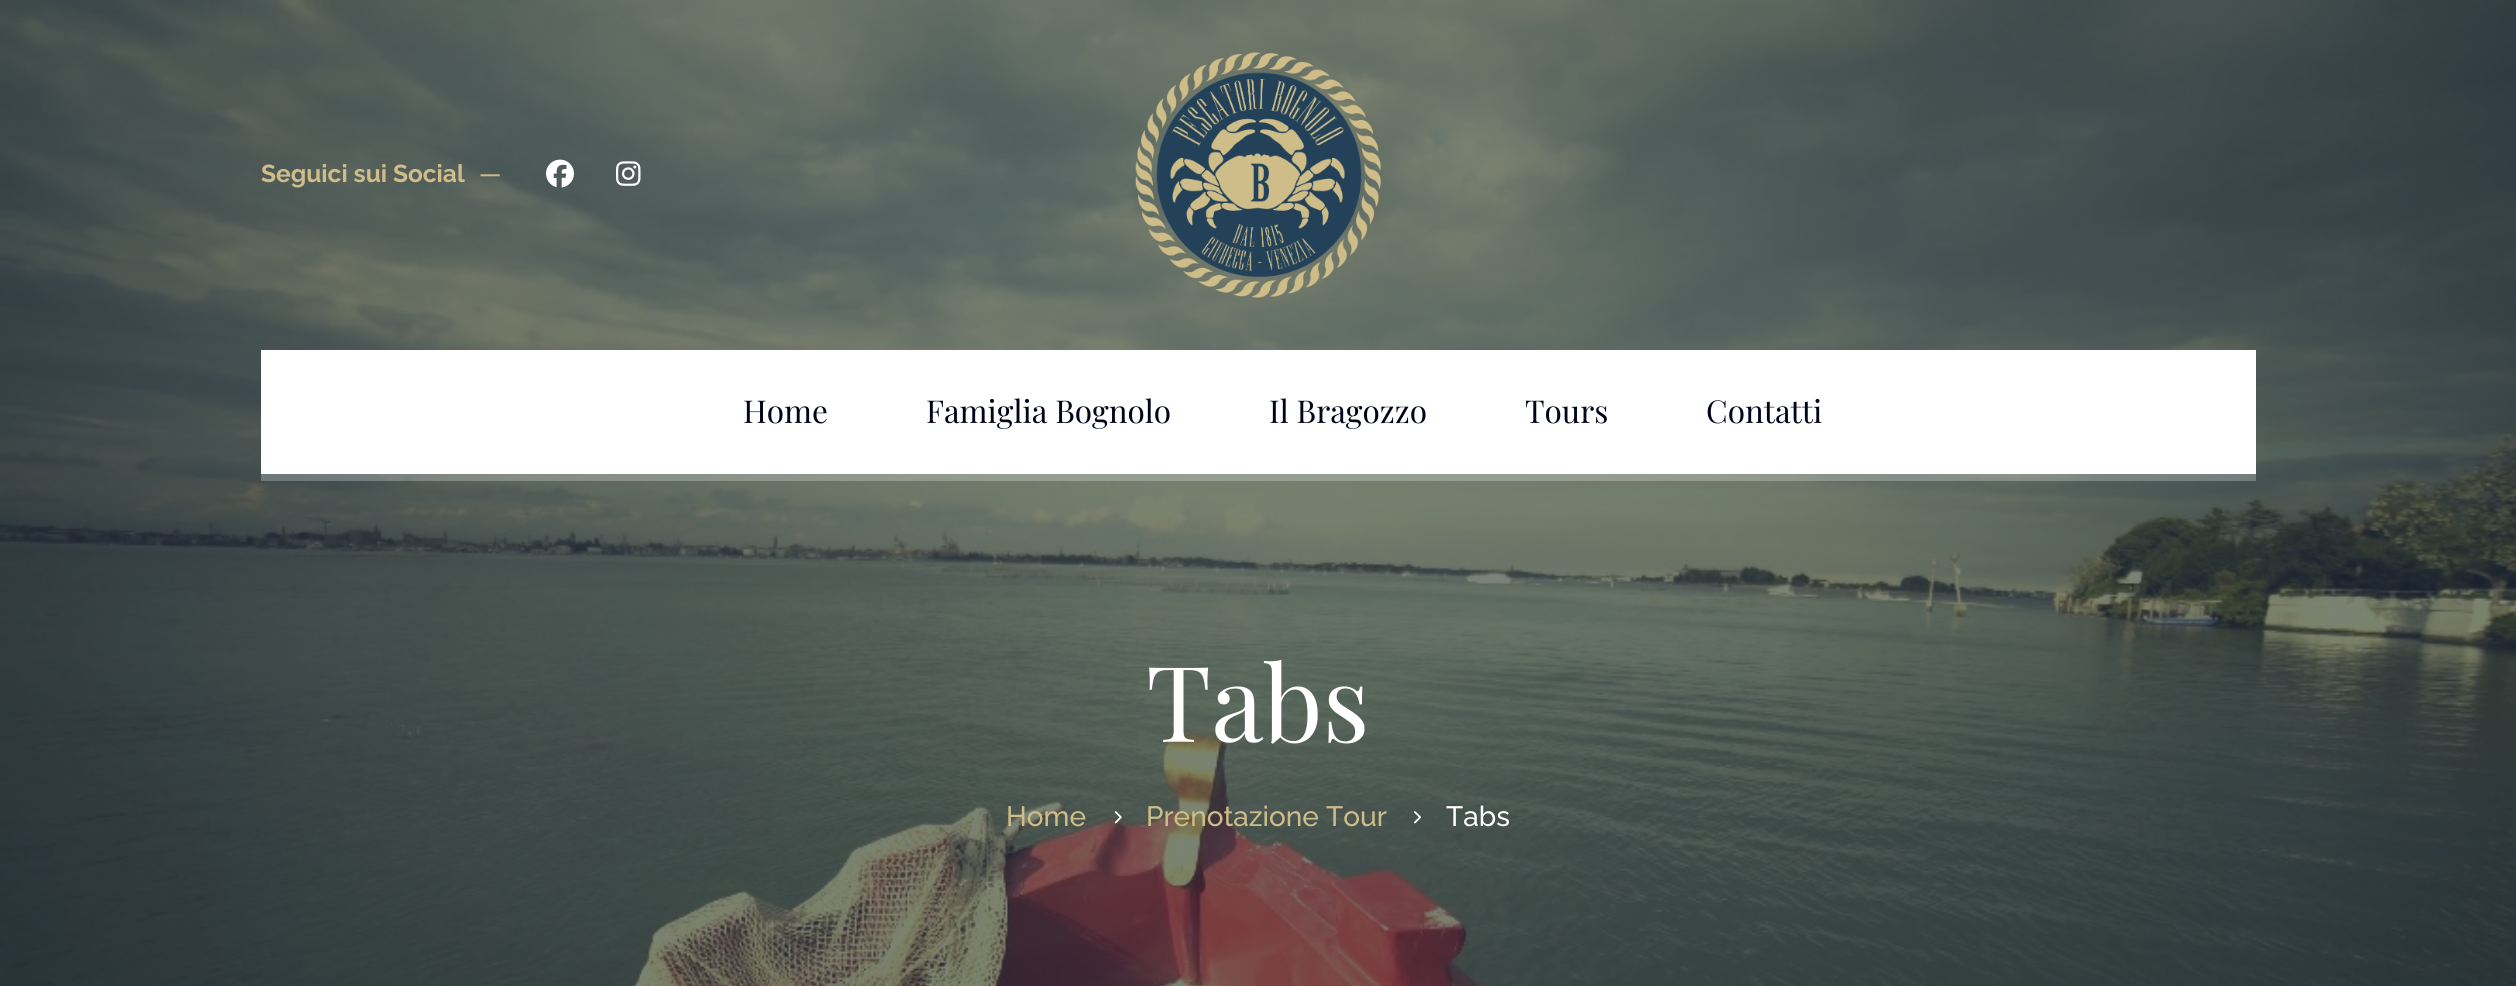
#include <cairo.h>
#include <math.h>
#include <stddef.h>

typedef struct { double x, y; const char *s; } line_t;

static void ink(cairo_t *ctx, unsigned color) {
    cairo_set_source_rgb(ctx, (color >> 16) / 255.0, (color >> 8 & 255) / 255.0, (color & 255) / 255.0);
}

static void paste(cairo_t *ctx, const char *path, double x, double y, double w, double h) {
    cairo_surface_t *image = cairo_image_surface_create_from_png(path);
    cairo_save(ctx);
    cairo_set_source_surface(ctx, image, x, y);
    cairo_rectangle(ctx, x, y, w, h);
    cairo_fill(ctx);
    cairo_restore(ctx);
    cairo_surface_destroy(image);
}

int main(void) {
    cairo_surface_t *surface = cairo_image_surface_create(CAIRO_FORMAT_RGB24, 2516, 986);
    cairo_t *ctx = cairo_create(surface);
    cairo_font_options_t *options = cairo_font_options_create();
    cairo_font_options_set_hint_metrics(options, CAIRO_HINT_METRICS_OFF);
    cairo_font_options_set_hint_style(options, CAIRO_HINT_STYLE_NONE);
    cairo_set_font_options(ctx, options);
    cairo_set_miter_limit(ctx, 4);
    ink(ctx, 0xFFFFFF);
    cairo_paint(ctx);
    paste(ctx, "media/1.png", 0, 0, 2516, 986);
    cairo_select_font_face(ctx, "Raleway", CAIRO_FONT_SLANT_NORMAL, CAIRO_FONT_WEIGHT_BOLD);
    cairo_set_font_size(ctx, 24.5);
    ink(ctx, 0xCEBD88);
    cairo_move_to(ctx, 261, 182);
    cairo_show_text(ctx, "Seguici sui Social");
    cairo_select_font_face(ctx, "Raleway Medium", CAIRO_FONT_SLANT_NORMAL, CAIRO_FONT_WEIGHT_NORMAL);
    cairo_move_to(ctx, 479, 182);
    cairo_show_text(ctx, "—");
    paste(ctx, "media/2.png", 546, 159, 28, 29);
    paste(ctx, "media/3.png", 616, 161, 25, 25);
    paste(ctx, "media/4.png", 1135, 52, 246, 246);
    ink(ctx, 0xFFFFFF);
    cairo_rectangle(ctx, 261, 350, 1995, 124);
    cairo_fill(ctx);
    cairo_select_font_face(ctx, "Playfair Display", CAIRO_FONT_SLANT_NORMAL, CAIRO_FONT_WEIGHT_NORMAL);
    cairo_set_font_size(ctx, 31.5);
    ink(ctx, 0x000419);
    {
        static const line_t items[] = {
            {743, 423, "Home"},
            {926, 423, "Famiglia Bognolo"},
            {1269, 423, "Il Bragozzo"},
            {1525, 423, "Tours"},
            {1706, 423, "Contatti"},
        };
        for (size_t i = 0; i < sizeof items / sizeof *items; i++) {
            cairo_move_to(ctx, items[i].x, items[i].y);
            cairo_show_text(ctx, items[i].s);
        }
    }
    cairo_set_source_rgba(ctx, 1, 1, 1, 0.25);
    cairo_rectangle(ctx, 261, 474, 1995, 7);
    cairo_fill(ctx);
    cairo_set_font_size(ctx, 105);
    ink(ctx, 0xFFFFFF);
    cairo_move_to(ctx, 1146, 742);
    cairo_show_text(ctx, "Tabs");
    cairo_select_font_face(ctx, "Raleway Medium", CAIRO_FONT_SLANT_NORMAL, CAIRO_FONT_WEIGHT_NORMAL);
    cairo_set_font_size(ctx, 28);
    ink(ctx, 0xCEBD88);
    cairo_move_to(ctx, 1006, 826);
    cairo_show_text(ctx, "Home");
    paste(ctx, "media/5.png", 1114, 811, 8, 13);
    cairo_move_to(ctx, 1146, 826);
    cairo_show_text(ctx, "Prenotazione Tour");
    paste(ctx, "media/6.png", 1414, 811, 7, 13);
    ink(ctx, 0xFFFFFF);
    cairo_move_to(ctx, 1446, 826);
    cairo_show_text(ctx, "Tabs");
    cairo_surface_write_to_png(surface, "image.png");
    cairo_font_options_destroy(options);
    cairo_destroy(ctx);
    cairo_surface_destroy(surface);
    return 0;
}
